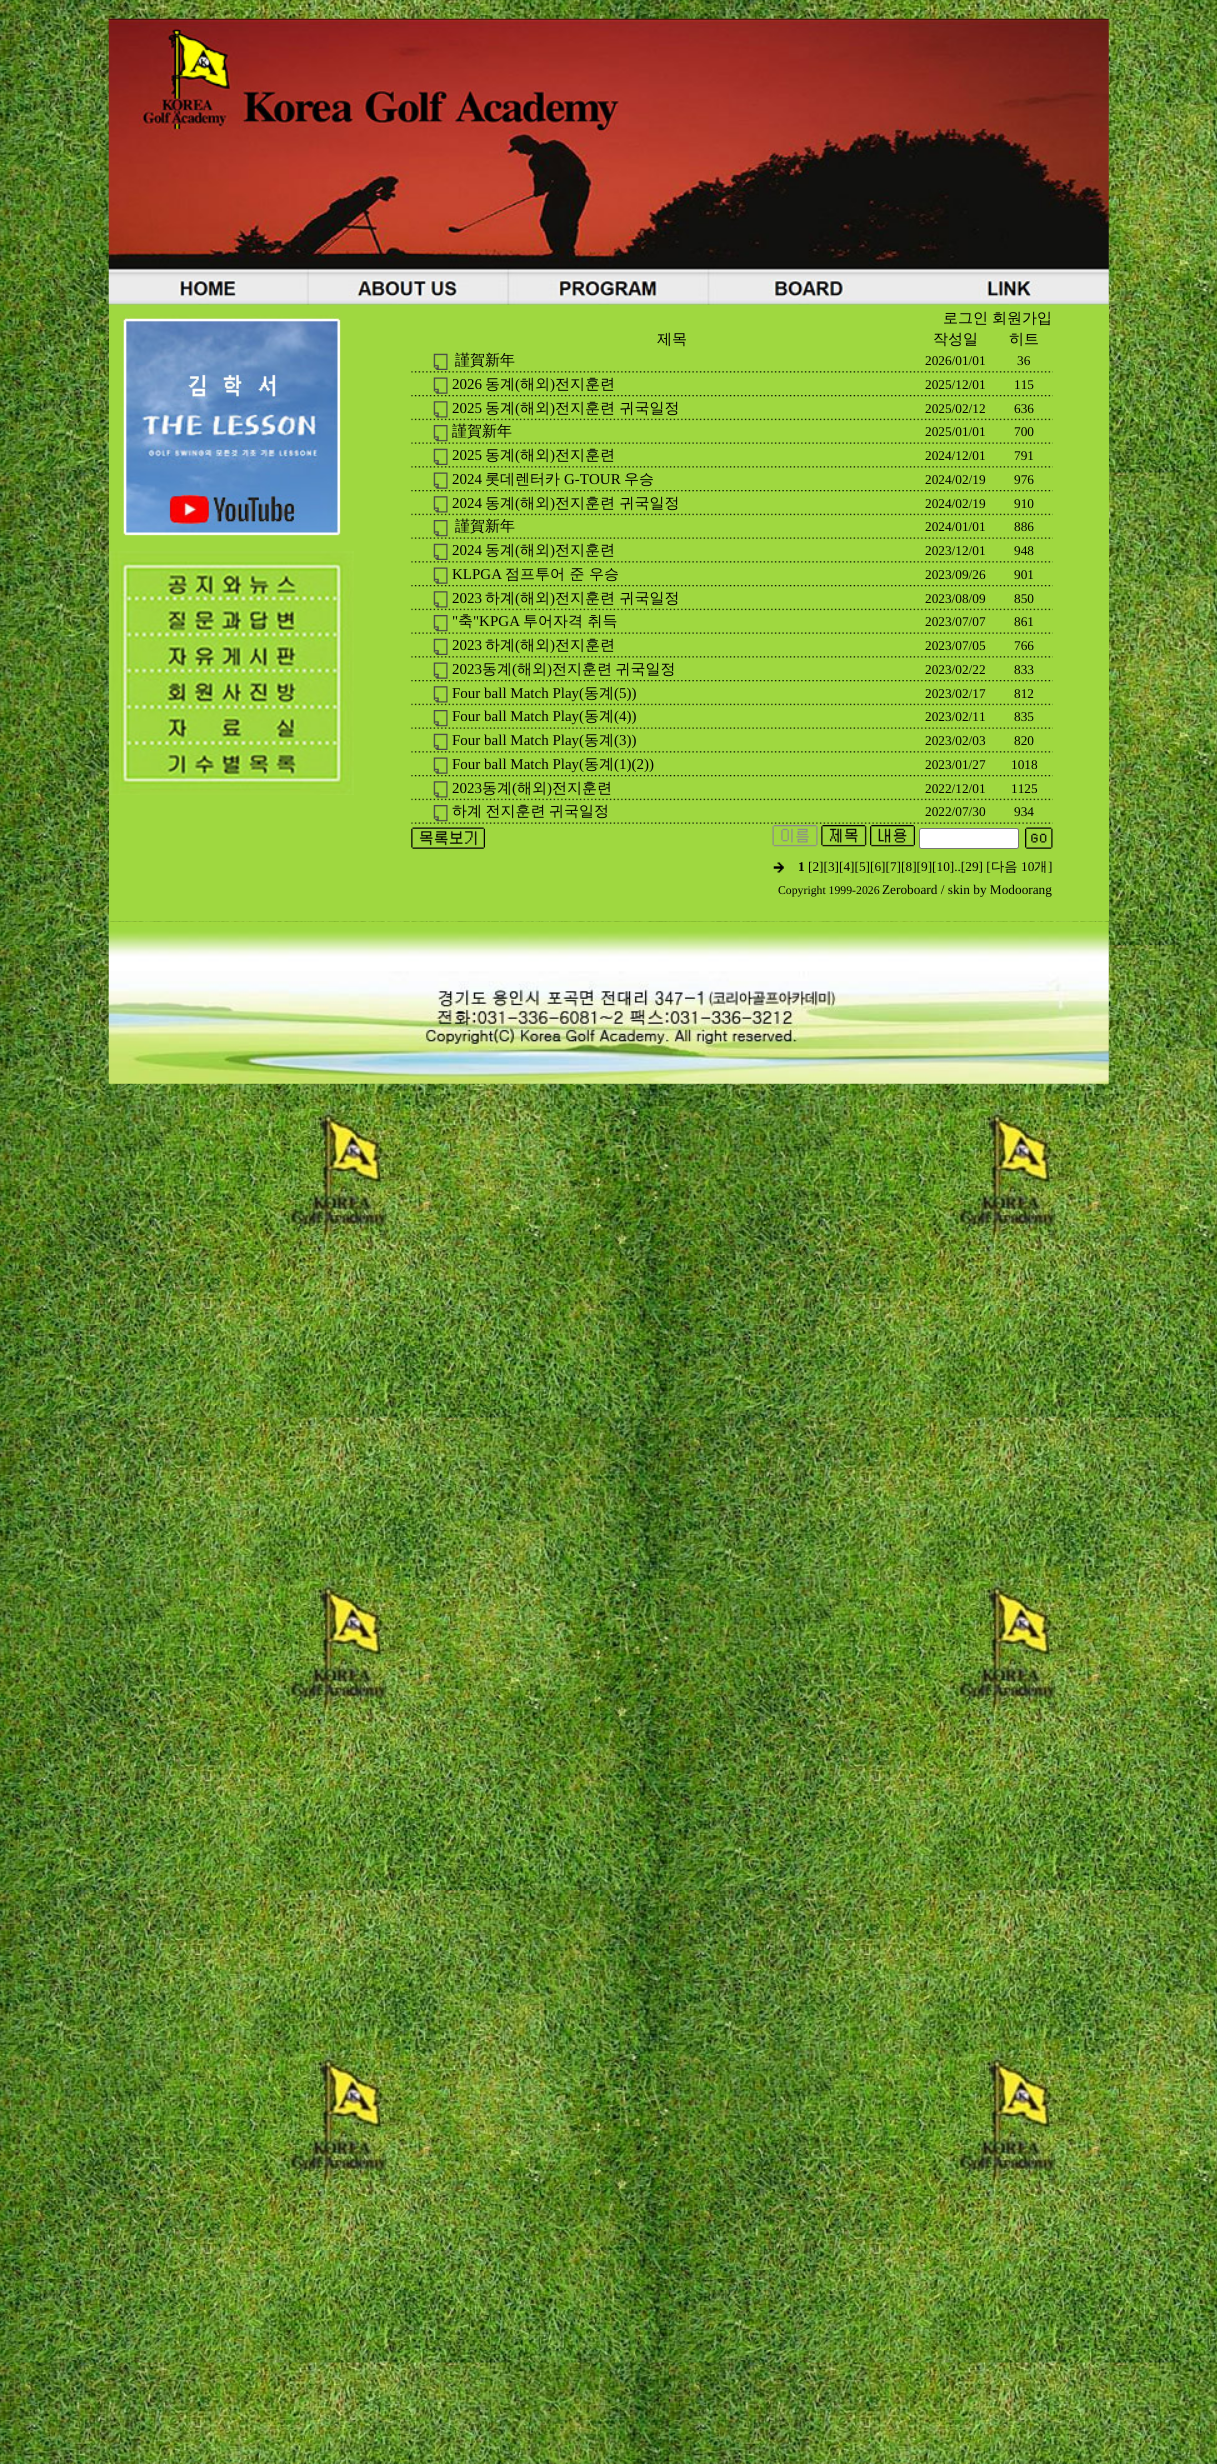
#include <cairo.h>
#include <math.h>
#include <stddef.h>

typedef struct { double x, y; const char *s; } line_t;

static void ink(cairo_t *ctx, unsigned color) {
    cairo_set_source_rgb(ctx, (color >> 16) / 255.0, (color >> 8 & 255) / 255.0, (color & 255) / 255.0);
}

static void write_spaced(cairo_t *ctx, double x, double y, const char *s, double letter, double word) {
    cairo_move_to(ctx, x, y);
    while (*s) {
        char ch[5] = {0};
        int n = 0;
        do ch[n++] = *s++; while ((*s & 0xC0) == 0x80);
        cairo_show_text(ctx, ch);
        cairo_rel_move_to(ctx, letter + word * (*ch == ' '), 0);
    }
}

static void round_path(cairo_t *ctx, double x, double y, double w, double h, double r) {
    cairo_new_sub_path(ctx);
    cairo_arc(ctx, x + w - r, y + h - r, r, 0, M_PI / 2);
    cairo_arc(ctx, x + r, y + h - r, r, M_PI / 2, M_PI);
    cairo_arc(ctx, x + r, y + r, r, M_PI, 1.5 * M_PI);
    cairo_arc(ctx, x + w - r, y + r, r, 1.5 * M_PI, 2 * M_PI);
    cairo_close_path(ctx);
}

static void paste(cairo_t *ctx, const char *path, double x, double y, double w, double h) {
    cairo_surface_t *image = cairo_image_surface_create_from_png(path);
    cairo_save(ctx);
    cairo_set_source_surface(ctx, image, x, y);
    cairo_rectangle(ctx, x, y, w, h);
    cairo_fill(ctx);
    cairo_restore(ctx);
    cairo_surface_destroy(image);
}

int main(void) {
    cairo_surface_t *surface = cairo_image_surface_create(CAIRO_FORMAT_RGB24, 1217, 2464);
    cairo_t *ctx = cairo_create(surface);
    cairo_font_options_t *options = cairo_font_options_create();
    cairo_font_options_set_hint_metrics(options, CAIRO_HINT_METRICS_OFF);
    cairo_font_options_set_hint_style(options, CAIRO_HINT_STYLE_NONE);
    cairo_set_font_options(ctx, options);
    cairo_set_miter_limit(ctx, 4);
    ink(ctx, 0xFFFFFF);
    cairo_paint(ctx);
    paste(ctx, "media/1.png", 0, 0, 1217, 2464);
    paste(ctx, "media/2.png", 108, 18, 1001, 287);
    ink(ctx, 0x9FD840);
    cairo_rectangle(ctx, 109, 305, 1000, 616);
    cairo_fill(ctx);
    paste(ctx, "media/3.png", 120, 315, 221, 221);
    paste(ctx, "media/4.png", 110, 551, 244, 244);
    cairo_select_font_face(ctx, "WenQuanYi Zen Hei Medium", CAIRO_FONT_SLANT_NORMAL, CAIRO_FONT_WEIGHT_NORMAL);
    cairo_set_font_size(ctx, 15);
    ink(ctx, 0x000000);
    {
        static const line_t items[] = {
            {943, 323, "로그인"},
            {992, 323, "회원가입"},
            {657, 344, "제목"},
            {933, 344, "작성일"},
            {1009, 344, "히트"},
        };
        for (size_t i = 0; i < sizeof items / sizeof *items; i++) {
            cairo_move_to(ctx, items[i].x, items[i].y);
            cairo_show_text(ctx, items[i].s);
        }
    }
    paste(ctx, "media/5.png", 433, 353, 15, 17);
    cairo_move_to(ctx, 455, 365);
    cairo_show_text(ctx, "謹賀新年");
    cairo_select_font_face(ctx, "Liberation Serif", CAIRO_FONT_SLANT_NORMAL, CAIRO_FONT_WEIGHT_NORMAL);
    cairo_set_font_size(ctx, 13.3);
    cairo_move_to(ctx, 925, 365);
    cairo_show_text(ctx, "2026/01/01");
    cairo_move_to(ctx, 1017, 365);
    cairo_show_text(ctx, "36");
    paste(ctx, "media/6.png", 411, 371, 642, 2);
    paste(ctx, "media/7.png", 433, 377, 15, 17);
    cairo_set_font_size(ctx, 15);
    cairo_move_to(ctx, 452, 389);
    cairo_show_text(ctx, "2026");
    cairo_select_font_face(ctx, "WenQuanYi Zen Hei Medium", CAIRO_FONT_SLANT_NORMAL, CAIRO_FONT_WEIGHT_NORMAL);
    cairo_move_to(ctx, 485, 389);
    cairo_show_text(ctx, "동계");
    cairo_select_font_face(ctx, "Liberation Serif", CAIRO_FONT_SLANT_NORMAL, CAIRO_FONT_WEIGHT_NORMAL);
    cairo_move_to(ctx, 515, 389);
    cairo_show_text(ctx, "(");
    cairo_select_font_face(ctx, "WenQuanYi Zen Hei Medium", CAIRO_FONT_SLANT_NORMAL, CAIRO_FONT_WEIGHT_NORMAL);
    cairo_move_to(ctx, 520, 389);
    cairo_show_text(ctx, "해외");
    cairo_select_font_face(ctx, "Liberation Serif", CAIRO_FONT_SLANT_NORMAL, CAIRO_FONT_WEIGHT_NORMAL);
    cairo_move_to(ctx, 550, 389);
    cairo_show_text(ctx, ")");
    cairo_select_font_face(ctx, "WenQuanYi Zen Hei Medium", CAIRO_FONT_SLANT_NORMAL, CAIRO_FONT_WEIGHT_NORMAL);
    cairo_move_to(ctx, 555, 389);
    cairo_show_text(ctx, "전지훈련");
    cairo_select_font_face(ctx, "Liberation Serif", CAIRO_FONT_SLANT_NORMAL, CAIRO_FONT_WEIGHT_NORMAL);
    cairo_set_font_size(ctx, 13.3);
    cairo_move_to(ctx, 925, 389);
    cairo_show_text(ctx, "2025/12/01");
    cairo_move_to(ctx, 1014, 389);
    cairo_show_text(ctx, "115");
    paste(ctx, "media/8.png", 411, 395, 642, 2);
    paste(ctx, "media/9.png", 433, 401, 15, 17);
    cairo_set_font_size(ctx, 15);
    cairo_move_to(ctx, 452, 413);
    cairo_show_text(ctx, "2025");
    cairo_select_font_face(ctx, "WenQuanYi Zen Hei Medium", CAIRO_FONT_SLANT_NORMAL, CAIRO_FONT_WEIGHT_NORMAL);
    cairo_move_to(ctx, 485, 413);
    cairo_show_text(ctx, "동계");
    cairo_select_font_face(ctx, "Liberation Serif", CAIRO_FONT_SLANT_NORMAL, CAIRO_FONT_WEIGHT_NORMAL);
    cairo_move_to(ctx, 515, 413);
    cairo_show_text(ctx, "(");
    cairo_select_font_face(ctx, "WenQuanYi Zen Hei Medium", CAIRO_FONT_SLANT_NORMAL, CAIRO_FONT_WEIGHT_NORMAL);
    cairo_move_to(ctx, 520, 413);
    cairo_show_text(ctx, "해외");
    cairo_select_font_face(ctx, "Liberation Serif", CAIRO_FONT_SLANT_NORMAL, CAIRO_FONT_WEIGHT_NORMAL);
    cairo_move_to(ctx, 550, 413);
    cairo_show_text(ctx, ")");
    cairo_select_font_face(ctx, "WenQuanYi Zen Hei Medium", CAIRO_FONT_SLANT_NORMAL, CAIRO_FONT_WEIGHT_NORMAL);
    cairo_move_to(ctx, 555, 413);
    cairo_show_text(ctx, "전지훈련 귀국일정");
    cairo_select_font_face(ctx, "Liberation Serif", CAIRO_FONT_SLANT_NORMAL, CAIRO_FONT_WEIGHT_NORMAL);
    cairo_set_font_size(ctx, 13.3);
    cairo_move_to(ctx, 925, 413);
    cairo_show_text(ctx, "2025/02/12");
    cairo_move_to(ctx, 1014, 413);
    cairo_show_text(ctx, "636");
    paste(ctx, "media/10.png", 411, 418, 642, 3);
    paste(ctx, "media/11.png", 433, 425, 15, 17);
    cairo_select_font_face(ctx, "WenQuanYi Zen Hei Medium", CAIRO_FONT_SLANT_NORMAL, CAIRO_FONT_WEIGHT_NORMAL);
    cairo_set_font_size(ctx, 15);
    cairo_move_to(ctx, 452, 436);
    cairo_show_text(ctx, "謹賀新年");
    cairo_select_font_face(ctx, "Liberation Serif", CAIRO_FONT_SLANT_NORMAL, CAIRO_FONT_WEIGHT_NORMAL);
    cairo_set_font_size(ctx, 13.3);
    cairo_move_to(ctx, 925, 436);
    cairo_show_text(ctx, "2025/01/01");
    cairo_move_to(ctx, 1014, 436);
    cairo_show_text(ctx, "700");
    paste(ctx, "media/12.png", 411, 442, 642, 2);
    paste(ctx, "media/5.png", 433, 448, 15, 17);
    cairo_set_font_size(ctx, 15);
    cairo_move_to(ctx, 452, 460);
    cairo_show_text(ctx, "2025");
    cairo_select_font_face(ctx, "WenQuanYi Zen Hei Medium", CAIRO_FONT_SLANT_NORMAL, CAIRO_FONT_WEIGHT_NORMAL);
    cairo_move_to(ctx, 485, 460);
    cairo_show_text(ctx, "동계");
    cairo_select_font_face(ctx, "Liberation Serif", CAIRO_FONT_SLANT_NORMAL, CAIRO_FONT_WEIGHT_NORMAL);
    cairo_move_to(ctx, 515, 460);
    cairo_show_text(ctx, "(");
    cairo_select_font_face(ctx, "WenQuanYi Zen Hei Medium", CAIRO_FONT_SLANT_NORMAL, CAIRO_FONT_WEIGHT_NORMAL);
    cairo_move_to(ctx, 520, 460);
    cairo_show_text(ctx, "해외");
    cairo_select_font_face(ctx, "Liberation Serif", CAIRO_FONT_SLANT_NORMAL, CAIRO_FONT_WEIGHT_NORMAL);
    cairo_move_to(ctx, 550, 460);
    cairo_show_text(ctx, ")");
    cairo_select_font_face(ctx, "WenQuanYi Zen Hei Medium", CAIRO_FONT_SLANT_NORMAL, CAIRO_FONT_WEIGHT_NORMAL);
    cairo_move_to(ctx, 555, 460);
    cairo_show_text(ctx, "전지훈련");
    cairo_select_font_face(ctx, "Liberation Serif", CAIRO_FONT_SLANT_NORMAL, CAIRO_FONT_WEIGHT_NORMAL);
    cairo_set_font_size(ctx, 13.3);
    cairo_move_to(ctx, 925, 460);
    cairo_show_text(ctx, "2024/12/01");
    cairo_move_to(ctx, 1014, 460);
    cairo_show_text(ctx, "791");
    paste(ctx, "media/6.png", 411, 466, 642, 2);
    paste(ctx, "media/7.png", 433, 472, 15, 17);
    cairo_set_font_size(ctx, 15);
    cairo_move_to(ctx, 452, 484);
    cairo_show_text(ctx, "2024");
    cairo_select_font_face(ctx, "WenQuanYi Zen Hei Medium", CAIRO_FONT_SLANT_NORMAL, CAIRO_FONT_WEIGHT_NORMAL);
    cairo_move_to(ctx, 485, 484);
    cairo_show_text(ctx, "롯데렌터카");
    cairo_select_font_face(ctx, "Liberation Serif", CAIRO_FONT_SLANT_NORMAL, CAIRO_FONT_WEIGHT_NORMAL);
    cairo_move_to(ctx, 564, 484);
    cairo_show_text(ctx, "G-TOUR");
    cairo_select_font_face(ctx, "WenQuanYi Zen Hei Medium", CAIRO_FONT_SLANT_NORMAL, CAIRO_FONT_WEIGHT_NORMAL);
    cairo_move_to(ctx, 624, 484);
    cairo_show_text(ctx, "우승");
    cairo_select_font_face(ctx, "Liberation Serif", CAIRO_FONT_SLANT_NORMAL, CAIRO_FONT_WEIGHT_NORMAL);
    cairo_set_font_size(ctx, 13.3);
    cairo_move_to(ctx, 925, 484);
    cairo_show_text(ctx, "2024/02/19");
    cairo_move_to(ctx, 1014, 484);
    cairo_show_text(ctx, "976");
    paste(ctx, "media/8.png", 411, 490, 642, 2);
    paste(ctx, "media/9.png", 433, 496, 15, 17);
    cairo_set_font_size(ctx, 15);
    cairo_move_to(ctx, 452, 508);
    cairo_show_text(ctx, "2024");
    cairo_select_font_face(ctx, "WenQuanYi Zen Hei Medium", CAIRO_FONT_SLANT_NORMAL, CAIRO_FONT_WEIGHT_NORMAL);
    cairo_move_to(ctx, 485, 508);
    cairo_show_text(ctx, "동계");
    cairo_select_font_face(ctx, "Liberation Serif", CAIRO_FONT_SLANT_NORMAL, CAIRO_FONT_WEIGHT_NORMAL);
    cairo_move_to(ctx, 515, 508);
    cairo_show_text(ctx, "(");
    cairo_select_font_face(ctx, "WenQuanYi Zen Hei Medium", CAIRO_FONT_SLANT_NORMAL, CAIRO_FONT_WEIGHT_NORMAL);
    cairo_move_to(ctx, 520, 508);
    cairo_show_text(ctx, "해외");
    cairo_select_font_face(ctx, "Liberation Serif", CAIRO_FONT_SLANT_NORMAL, CAIRO_FONT_WEIGHT_NORMAL);
    cairo_move_to(ctx, 550, 508);
    cairo_show_text(ctx, ")");
    cairo_select_font_face(ctx, "WenQuanYi Zen Hei Medium", CAIRO_FONT_SLANT_NORMAL, CAIRO_FONT_WEIGHT_NORMAL);
    cairo_move_to(ctx, 555, 508);
    cairo_show_text(ctx, "전지훈련 귀국일정");
    cairo_select_font_face(ctx, "Liberation Serif", CAIRO_FONT_SLANT_NORMAL, CAIRO_FONT_WEIGHT_NORMAL);
    cairo_set_font_size(ctx, 13.3);
    cairo_move_to(ctx, 925, 508);
    cairo_show_text(ctx, "2024/02/19");
    cairo_move_to(ctx, 1014, 508);
    cairo_show_text(ctx, "910");
    paste(ctx, "media/10.png", 411, 513, 642, 3);
    paste(ctx, "media/11.png", 433, 520, 15, 17);
    cairo_select_font_face(ctx, "WenQuanYi Zen Hei Medium", CAIRO_FONT_SLANT_NORMAL, CAIRO_FONT_WEIGHT_NORMAL);
    cairo_set_font_size(ctx, 15);
    cairo_move_to(ctx, 455, 531);
    cairo_show_text(ctx, "謹賀新年");
    cairo_select_font_face(ctx, "Liberation Serif", CAIRO_FONT_SLANT_NORMAL, CAIRO_FONT_WEIGHT_NORMAL);
    cairo_set_font_size(ctx, 13.3);
    cairo_move_to(ctx, 925, 531);
    cairo_show_text(ctx, "2024/01/01");
    cairo_move_to(ctx, 1014, 531);
    cairo_show_text(ctx, "886");
    paste(ctx, "media/12.png", 411, 537, 642, 2);
    paste(ctx, "media/5.png", 433, 543, 15, 17);
    cairo_set_font_size(ctx, 15);
    cairo_move_to(ctx, 452, 555);
    cairo_show_text(ctx, "2024");
    cairo_select_font_face(ctx, "WenQuanYi Zen Hei Medium", CAIRO_FONT_SLANT_NORMAL, CAIRO_FONT_WEIGHT_NORMAL);
    cairo_move_to(ctx, 485, 555);
    cairo_show_text(ctx, "동계");
    cairo_select_font_face(ctx, "Liberation Serif", CAIRO_FONT_SLANT_NORMAL, CAIRO_FONT_WEIGHT_NORMAL);
    cairo_move_to(ctx, 515, 555);
    cairo_show_text(ctx, "(");
    cairo_select_font_face(ctx, "WenQuanYi Zen Hei Medium", CAIRO_FONT_SLANT_NORMAL, CAIRO_FONT_WEIGHT_NORMAL);
    cairo_move_to(ctx, 520, 555);
    cairo_show_text(ctx, "해외");
    cairo_select_font_face(ctx, "Liberation Serif", CAIRO_FONT_SLANT_NORMAL, CAIRO_FONT_WEIGHT_NORMAL);
    cairo_move_to(ctx, 550, 555);
    cairo_show_text(ctx, ")");
    cairo_select_font_face(ctx, "WenQuanYi Zen Hei Medium", CAIRO_FONT_SLANT_NORMAL, CAIRO_FONT_WEIGHT_NORMAL);
    cairo_move_to(ctx, 555, 555);
    cairo_show_text(ctx, "전지훈련");
    cairo_select_font_face(ctx, "Liberation Serif", CAIRO_FONT_SLANT_NORMAL, CAIRO_FONT_WEIGHT_NORMAL);
    cairo_set_font_size(ctx, 13.3);
    cairo_move_to(ctx, 925, 555);
    cairo_show_text(ctx, "2023/12/01");
    cairo_move_to(ctx, 1014, 555);
    cairo_show_text(ctx, "948");
    paste(ctx, "media/6.png", 411, 561, 642, 2);
    paste(ctx, "media/7.png", 433, 567, 15, 17);
    cairo_set_font_size(ctx, 15);
    cairo_move_to(ctx, 452, 579);
    cairo_show_text(ctx, "KLPGA");
    cairo_select_font_face(ctx, "WenQuanYi Zen Hei Medium", CAIRO_FONT_SLANT_NORMAL, CAIRO_FONT_WEIGHT_NORMAL);
    cairo_move_to(ctx, 505, 579);
    cairo_show_text(ctx, "점프투어 준 우승");
    cairo_select_font_face(ctx, "Liberation Serif", CAIRO_FONT_SLANT_NORMAL, CAIRO_FONT_WEIGHT_NORMAL);
    cairo_set_font_size(ctx, 13.3);
    cairo_move_to(ctx, 925, 579);
    cairo_show_text(ctx, "2023/09/26");
    cairo_move_to(ctx, 1014, 579);
    cairo_show_text(ctx, "901");
    paste(ctx, "media/8.png", 411, 585, 642, 2);
    paste(ctx, "media/9.png", 433, 591, 15, 17);
    cairo_set_font_size(ctx, 15);
    cairo_move_to(ctx, 452, 603);
    cairo_show_text(ctx, "2023");
    cairo_select_font_face(ctx, "WenQuanYi Zen Hei Medium", CAIRO_FONT_SLANT_NORMAL, CAIRO_FONT_WEIGHT_NORMAL);
    cairo_move_to(ctx, 485, 603);
    cairo_show_text(ctx, "하계");
    cairo_select_font_face(ctx, "Liberation Serif", CAIRO_FONT_SLANT_NORMAL, CAIRO_FONT_WEIGHT_NORMAL);
    cairo_move_to(ctx, 515, 603);
    cairo_show_text(ctx, "(");
    cairo_select_font_face(ctx, "WenQuanYi Zen Hei Medium", CAIRO_FONT_SLANT_NORMAL, CAIRO_FONT_WEIGHT_NORMAL);
    cairo_move_to(ctx, 520, 603);
    cairo_show_text(ctx, "해외");
    cairo_select_font_face(ctx, "Liberation Serif", CAIRO_FONT_SLANT_NORMAL, CAIRO_FONT_WEIGHT_NORMAL);
    cairo_move_to(ctx, 550, 603);
    cairo_show_text(ctx, ")");
    cairo_select_font_face(ctx, "WenQuanYi Zen Hei Medium", CAIRO_FONT_SLANT_NORMAL, CAIRO_FONT_WEIGHT_NORMAL);
    cairo_move_to(ctx, 555, 603);
    cairo_show_text(ctx, "전지훈련 귀국일정");
    cairo_select_font_face(ctx, "Liberation Serif", CAIRO_FONT_SLANT_NORMAL, CAIRO_FONT_WEIGHT_NORMAL);
    cairo_set_font_size(ctx, 13.3);
    cairo_move_to(ctx, 925, 603);
    cairo_show_text(ctx, "2023/08/09");
    cairo_move_to(ctx, 1014, 603);
    cairo_show_text(ctx, "850");
    paste(ctx, "media/10.png", 411, 608, 642, 3);
    paste(ctx, "media/11.png", 433, 615, 15, 17);
    cairo_set_font_size(ctx, 15);
    cairo_move_to(ctx, 452, 626);
    cairo_show_text(ctx, "\"");
    cairo_select_font_face(ctx, "WenQuanYi Zen Hei Medium", CAIRO_FONT_SLANT_NORMAL, CAIRO_FONT_WEIGHT_NORMAL);
    cairo_move_to(ctx, 458, 626);
    cairo_show_text(ctx, "축");
    cairo_select_font_face(ctx, "Liberation Serif", CAIRO_FONT_SLANT_NORMAL, CAIRO_FONT_WEIGHT_NORMAL);
    cairo_move_to(ctx, 473, 626);
    cairo_show_text(ctx, "\"KPGA");
    cairo_select_font_face(ctx, "WenQuanYi Zen Hei Medium", CAIRO_FONT_SLANT_NORMAL, CAIRO_FONT_WEIGHT_NORMAL);
    cairo_move_to(ctx, 523, 626);
    cairo_show_text(ctx, "투어자격 취득");
    cairo_select_font_face(ctx, "Liberation Serif", CAIRO_FONT_SLANT_NORMAL, CAIRO_FONT_WEIGHT_NORMAL);
    cairo_set_font_size(ctx, 13.3);
    cairo_move_to(ctx, 925, 626);
    cairo_show_text(ctx, "2023/07/07");
    cairo_move_to(ctx, 1014, 626);
    cairo_show_text(ctx, "861");
    paste(ctx, "media/12.png", 411, 632, 642, 2);
    paste(ctx, "media/5.png", 433, 638, 15, 17);
    cairo_set_font_size(ctx, 15);
    cairo_move_to(ctx, 452, 650);
    cairo_show_text(ctx, "2023");
    cairo_select_font_face(ctx, "WenQuanYi Zen Hei Medium", CAIRO_FONT_SLANT_NORMAL, CAIRO_FONT_WEIGHT_NORMAL);
    cairo_move_to(ctx, 485, 650);
    cairo_show_text(ctx, "하계");
    cairo_select_font_face(ctx, "Liberation Serif", CAIRO_FONT_SLANT_NORMAL, CAIRO_FONT_WEIGHT_NORMAL);
    cairo_move_to(ctx, 515, 650);
    cairo_show_text(ctx, "(");
    cairo_select_font_face(ctx, "WenQuanYi Zen Hei Medium", CAIRO_FONT_SLANT_NORMAL, CAIRO_FONT_WEIGHT_NORMAL);
    cairo_move_to(ctx, 520, 650);
    cairo_show_text(ctx, "해외");
    cairo_select_font_face(ctx, "Liberation Serif", CAIRO_FONT_SLANT_NORMAL, CAIRO_FONT_WEIGHT_NORMAL);
    cairo_move_to(ctx, 550, 650);
    cairo_show_text(ctx, ")");
    cairo_select_font_face(ctx, "WenQuanYi Zen Hei Medium", CAIRO_FONT_SLANT_NORMAL, CAIRO_FONT_WEIGHT_NORMAL);
    cairo_move_to(ctx, 555, 650);
    cairo_show_text(ctx, "전지훈련");
    cairo_select_font_face(ctx, "Liberation Serif", CAIRO_FONT_SLANT_NORMAL, CAIRO_FONT_WEIGHT_NORMAL);
    cairo_set_font_size(ctx, 13.3);
    cairo_move_to(ctx, 925, 650);
    cairo_show_text(ctx, "2023/07/05");
    cairo_move_to(ctx, 1014, 650);
    cairo_show_text(ctx, "766");
    paste(ctx, "media/6.png", 411, 656, 642, 2);
    paste(ctx, "media/7.png", 433, 662, 15, 17);
    cairo_set_font_size(ctx, 15);
    cairo_move_to(ctx, 452, 674);
    cairo_show_text(ctx, "2023");
    cairo_select_font_face(ctx, "WenQuanYi Zen Hei Medium", CAIRO_FONT_SLANT_NORMAL, CAIRO_FONT_WEIGHT_NORMAL);
    cairo_move_to(ctx, 482, 674);
    cairo_show_text(ctx, "동계");
    cairo_select_font_face(ctx, "Liberation Serif", CAIRO_FONT_SLANT_NORMAL, CAIRO_FONT_WEIGHT_NORMAL);
    cairo_move_to(ctx, 512, 674);
    cairo_show_text(ctx, "(");
    cairo_select_font_face(ctx, "WenQuanYi Zen Hei Medium", CAIRO_FONT_SLANT_NORMAL, CAIRO_FONT_WEIGHT_NORMAL);
    cairo_move_to(ctx, 517, 674);
    cairo_show_text(ctx, "해외");
    cairo_select_font_face(ctx, "Liberation Serif", CAIRO_FONT_SLANT_NORMAL, CAIRO_FONT_WEIGHT_NORMAL);
    cairo_move_to(ctx, 547, 674);
    cairo_show_text(ctx, ")");
    cairo_select_font_face(ctx, "WenQuanYi Zen Hei Medium", CAIRO_FONT_SLANT_NORMAL, CAIRO_FONT_WEIGHT_NORMAL);
    write_spaced(ctx, 552, 674, "전지훈련 귀국일정", 0, -1);
    cairo_select_font_face(ctx, "Liberation Serif", CAIRO_FONT_SLANT_NORMAL, CAIRO_FONT_WEIGHT_NORMAL);
    cairo_set_font_size(ctx, 13.3);
    cairo_move_to(ctx, 925, 674);
    cairo_show_text(ctx, "2023/02/22");
    cairo_move_to(ctx, 1014, 674);
    cairo_show_text(ctx, "833");
    paste(ctx, "media/8.png", 411, 680, 642, 2);
    paste(ctx, "media/9.png", 433, 686, 15, 17);
    cairo_set_font_size(ctx, 15);
    cairo_move_to(ctx, 452, 698);
    cairo_show_text(ctx, "Four ball Match Play(");
    cairo_select_font_face(ctx, "WenQuanYi Zen Hei Medium", CAIRO_FONT_SLANT_NORMAL, CAIRO_FONT_WEIGHT_NORMAL);
    cairo_move_to(ctx, 584, 698);
    cairo_show_text(ctx, "동계");
    cairo_select_font_face(ctx, "Liberation Serif", CAIRO_FONT_SLANT_NORMAL, CAIRO_FONT_WEIGHT_NORMAL);
    cairo_move_to(ctx, 614, 698);
    cairo_show_text(ctx, "(5))");
    cairo_set_font_size(ctx, 13.3);
    cairo_move_to(ctx, 925, 698);
    cairo_show_text(ctx, "2023/02/17");
    cairo_move_to(ctx, 1014, 698);
    cairo_show_text(ctx, "812");
    paste(ctx, "media/10.png", 411, 703, 642, 3);
    paste(ctx, "media/11.png", 433, 710, 15, 17);
    cairo_set_font_size(ctx, 15);
    cairo_move_to(ctx, 452, 721);
    cairo_show_text(ctx, "Four ball Match Play(");
    cairo_select_font_face(ctx, "WenQuanYi Zen Hei Medium", CAIRO_FONT_SLANT_NORMAL, CAIRO_FONT_WEIGHT_NORMAL);
    cairo_move_to(ctx, 584, 721);
    cairo_show_text(ctx, "동계");
    cairo_select_font_face(ctx, "Liberation Serif", CAIRO_FONT_SLANT_NORMAL, CAIRO_FONT_WEIGHT_NORMAL);
    cairo_move_to(ctx, 614, 721);
    cairo_show_text(ctx, "(4))");
    cairo_set_font_size(ctx, 13.3);
    cairo_move_to(ctx, 925, 721);
    cairo_show_text(ctx, "2023/02/11");
    cairo_move_to(ctx, 1014, 721);
    cairo_show_text(ctx, "835");
    paste(ctx, "media/12.png", 411, 727, 642, 2);
    paste(ctx, "media/5.png", 433, 733, 15, 17);
    cairo_set_font_size(ctx, 15);
    cairo_move_to(ctx, 452, 745);
    cairo_show_text(ctx, "Four ball Match Play(");
    cairo_select_font_face(ctx, "WenQuanYi Zen Hei Medium", CAIRO_FONT_SLANT_NORMAL, CAIRO_FONT_WEIGHT_NORMAL);
    cairo_move_to(ctx, 584, 745);
    cairo_show_text(ctx, "동계");
    cairo_select_font_face(ctx, "Liberation Serif", CAIRO_FONT_SLANT_NORMAL, CAIRO_FONT_WEIGHT_NORMAL);
    cairo_move_to(ctx, 614, 745);
    cairo_show_text(ctx, "(3))");
    cairo_set_font_size(ctx, 13.3);
    cairo_move_to(ctx, 925, 745);
    cairo_show_text(ctx, "2023/02/03");
    cairo_move_to(ctx, 1014, 745);
    cairo_show_text(ctx, "820");
    paste(ctx, "media/6.png", 411, 751, 642, 2);
    paste(ctx, "media/7.png", 433, 757, 15, 17);
    cairo_set_font_size(ctx, 15);
    cairo_move_to(ctx, 452, 769);
    cairo_show_text(ctx, "Four ball Match Play(");
    cairo_select_font_face(ctx, "WenQuanYi Zen Hei Medium", CAIRO_FONT_SLANT_NORMAL, CAIRO_FONT_WEIGHT_NORMAL);
    cairo_move_to(ctx, 584, 769);
    cairo_show_text(ctx, "동계");
    cairo_select_font_face(ctx, "Liberation Serif", CAIRO_FONT_SLANT_NORMAL, CAIRO_FONT_WEIGHT_NORMAL);
    cairo_move_to(ctx, 614, 769);
    cairo_show_text(ctx, "(1)(2))");
    cairo_set_font_size(ctx, 13.3);
    cairo_move_to(ctx, 925, 769);
    cairo_show_text(ctx, "2023/01/27");
    cairo_move_to(ctx, 1011, 769);
    cairo_show_text(ctx, "1018");
    paste(ctx, "media/8.png", 411, 775, 642, 2);
    paste(ctx, "media/13.png", 433, 781, 15, 17);
    cairo_set_font_size(ctx, 15);
    cairo_move_to(ctx, 452, 793);
    cairo_show_text(ctx, "2023");
    cairo_select_font_face(ctx, "WenQuanYi Zen Hei Medium", CAIRO_FONT_SLANT_NORMAL, CAIRO_FONT_WEIGHT_NORMAL);
    cairo_move_to(ctx, 482, 793);
    cairo_show_text(ctx, "동계");
    cairo_select_font_face(ctx, "Liberation Serif", CAIRO_FONT_SLANT_NORMAL, CAIRO_FONT_WEIGHT_NORMAL);
    cairo_move_to(ctx, 512, 793);
    cairo_show_text(ctx, "(");
    cairo_select_font_face(ctx, "WenQuanYi Zen Hei Medium", CAIRO_FONT_SLANT_NORMAL, CAIRO_FONT_WEIGHT_NORMAL);
    cairo_move_to(ctx, 517, 793);
    cairo_show_text(ctx, "해외");
    cairo_select_font_face(ctx, "Liberation Serif", CAIRO_FONT_SLANT_NORMAL, CAIRO_FONT_WEIGHT_NORMAL);
    cairo_move_to(ctx, 547, 793);
    cairo_show_text(ctx, ")");
    cairo_select_font_face(ctx, "WenQuanYi Zen Hei Medium", CAIRO_FONT_SLANT_NORMAL, CAIRO_FONT_WEIGHT_NORMAL);
    cairo_move_to(ctx, 552, 793);
    cairo_show_text(ctx, "전지훈련");
    cairo_select_font_face(ctx, "Liberation Serif", CAIRO_FONT_SLANT_NORMAL, CAIRO_FONT_WEIGHT_NORMAL);
    cairo_set_font_size(ctx, 13.3);
    cairo_move_to(ctx, 925, 793);
    cairo_show_text(ctx, "2022/12/01");
    cairo_move_to(ctx, 1011, 793);
    cairo_show_text(ctx, "1125");
    paste(ctx, "media/10.png", 411, 798, 642, 3);
    paste(ctx, "media/11.png", 433, 805, 15, 17);
    cairo_select_font_face(ctx, "WenQuanYi Zen Hei Medium", CAIRO_FONT_SLANT_NORMAL, CAIRO_FONT_WEIGHT_NORMAL);
    cairo_set_font_size(ctx, 15);
    write_spaced(ctx, 452, 816, "하계 전지훈련 귀국일정", 0, -1);
    cairo_select_font_face(ctx, "Liberation Serif", CAIRO_FONT_SLANT_NORMAL, CAIRO_FONT_WEIGHT_NORMAL);
    cairo_set_font_size(ctx, 13.3);
    cairo_move_to(ctx, 925, 816);
    cairo_show_text(ctx, "2022/07/30");
    cairo_move_to(ctx, 1014, 816);
    cairo_show_text(ctx, "934");
    paste(ctx, "media/12.png", 411, 822, 642, 2);
    paste(ctx, "media/14.png", 411, 827, 74, 22);
    paste(ctx, "media/15.png", 772, 825, 46, 22);
    paste(ctx, "media/16.png", 821, 825, 46, 22);
    paste(ctx, "media/17.png", 870, 825, 45, 22);
    ink(ctx, 0xFFFFFF);
    round_path(ctx, 919.5, 828.5, 99, 20, 2);
    cairo_fill_preserve(ctx);
    ink(ctx, 0x767676);
    cairo_set_line_width(ctx, 1);
    cairo_stroke(ctx);
    paste(ctx, "media/18.png", 1025, 827, 28, 22);
    paste(ctx, "media/19.png", 773, 862, 11, 11);
    cairo_select_font_face(ctx, "Liberation Serif", CAIRO_FONT_SLANT_NORMAL, CAIRO_FONT_WEIGHT_BOLD);
    ink(ctx, 0x000000);
    cairo_move_to(ctx, 798, 871);
    cairo_show_text(ctx, "1");
    cairo_select_font_face(ctx, "Liberation Serif", CAIRO_FONT_SLANT_NORMAL, CAIRO_FONT_WEIGHT_NORMAL);
    cairo_move_to(ctx, 808, 871);
    cairo_show_text(ctx, "[2][3][4][5][6][7][8][9][10]..[29] [");
    cairo_select_font_face(ctx, "WenQuanYi Zen Hei Medium", CAIRO_FONT_SLANT_NORMAL, CAIRO_FONT_WEIGHT_NORMAL);
    cairo_move_to(ctx, 991, 871);
    cairo_show_text(ctx, "다음");
    cairo_select_font_face(ctx, "Liberation Serif", CAIRO_FONT_SLANT_NORMAL, CAIRO_FONT_WEIGHT_NORMAL);
    cairo_move_to(ctx, 1021, 871);
    cairo_show_text(ctx, "10");
    cairo_select_font_face(ctx, "WenQuanYi Zen Hei Medium", CAIRO_FONT_SLANT_NORMAL, CAIRO_FONT_WEIGHT_NORMAL);
    cairo_move_to(ctx, 1034, 871);
    cairo_show_text(ctx, "개");
    cairo_select_font_face(ctx, "Liberation Serif", CAIRO_FONT_SLANT_NORMAL, CAIRO_FONT_WEIGHT_NORMAL);
    cairo_move_to(ctx, 1048, 871);
    cairo_show_text(ctx, "]");
    cairo_set_font_size(ctx, 11.75);
    cairo_move_to(ctx, 778, 894);
    cairo_show_text(ctx, "Copyright 1999-2026");
    cairo_set_font_size(ctx, 13.3);
    cairo_move_to(ctx, 882, 894);
    cairo_show_text(ctx, "Zeroboard / skin by Modoorang");
    paste(ctx, "media/20.png", 108, 921, 1001, 163);
    cairo_surface_write_to_png(surface, "image.png");
    cairo_font_options_destroy(options);
    cairo_destroy(ctx);
    cairo_surface_destroy(surface);
    return 0;
}
